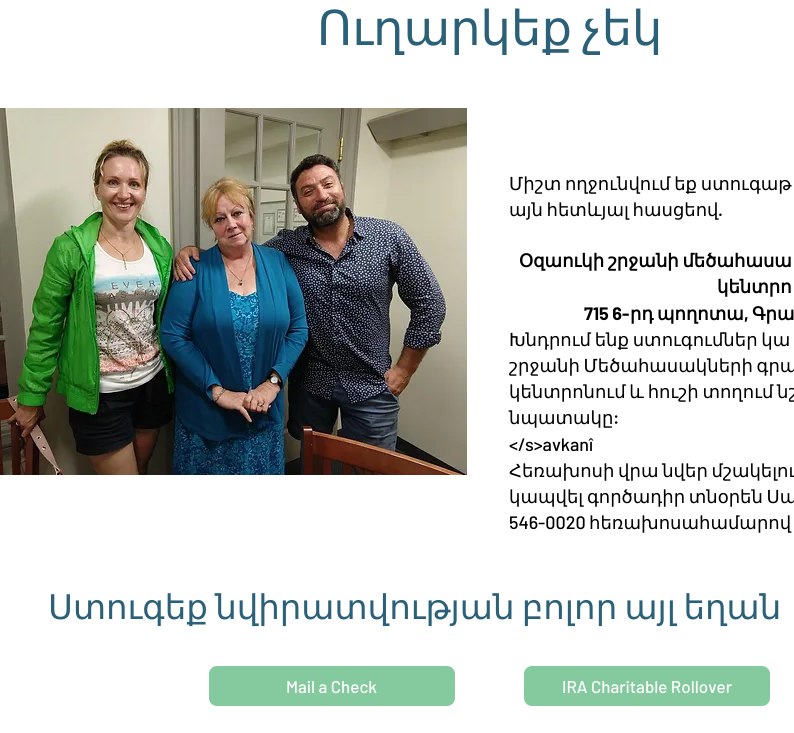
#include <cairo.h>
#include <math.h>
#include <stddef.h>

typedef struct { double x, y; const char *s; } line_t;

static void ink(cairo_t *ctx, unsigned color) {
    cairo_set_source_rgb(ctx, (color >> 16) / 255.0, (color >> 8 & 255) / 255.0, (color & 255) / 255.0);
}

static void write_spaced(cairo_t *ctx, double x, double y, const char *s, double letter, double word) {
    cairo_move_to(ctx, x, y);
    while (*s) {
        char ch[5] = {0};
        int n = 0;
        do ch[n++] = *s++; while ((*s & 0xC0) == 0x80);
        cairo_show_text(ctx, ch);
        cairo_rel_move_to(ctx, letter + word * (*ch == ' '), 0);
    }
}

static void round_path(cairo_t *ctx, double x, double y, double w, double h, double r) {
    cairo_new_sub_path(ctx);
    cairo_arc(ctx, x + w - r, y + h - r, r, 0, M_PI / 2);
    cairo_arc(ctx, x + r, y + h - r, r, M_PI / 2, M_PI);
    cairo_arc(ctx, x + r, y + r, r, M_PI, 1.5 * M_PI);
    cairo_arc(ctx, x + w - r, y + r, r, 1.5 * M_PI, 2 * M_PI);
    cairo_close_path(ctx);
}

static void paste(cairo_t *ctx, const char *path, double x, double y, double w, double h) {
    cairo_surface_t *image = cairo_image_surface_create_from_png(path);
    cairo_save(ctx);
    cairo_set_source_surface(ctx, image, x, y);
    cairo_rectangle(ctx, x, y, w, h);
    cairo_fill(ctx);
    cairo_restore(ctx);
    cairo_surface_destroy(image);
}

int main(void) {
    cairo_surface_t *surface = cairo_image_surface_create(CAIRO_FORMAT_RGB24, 794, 733);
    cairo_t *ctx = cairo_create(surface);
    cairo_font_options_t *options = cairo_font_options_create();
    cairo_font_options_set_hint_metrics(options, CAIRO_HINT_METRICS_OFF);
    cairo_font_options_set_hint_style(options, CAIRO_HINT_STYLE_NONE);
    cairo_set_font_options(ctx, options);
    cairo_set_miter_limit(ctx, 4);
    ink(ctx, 0xFFFFFF);
    cairo_paint(ctx);
    cairo_select_font_face(ctx, "DejaVu Sans", CAIRO_FONT_SLANT_NORMAL, CAIRO_FONT_WEIGHT_NORMAL);
    cairo_set_font_size(ctx, 48);
    ink(ctx, 0x2A6078);
    write_spaced(ctx, 317, 45, "Ուղարկեք չեկ", 0, -5);
    paste(ctx, "media/1.png", 0, 108, 467, 367);
    cairo_set_font_size(ctx, 18);
    ink(ctx, 0x000000);
    write_spaced(ctx, 509, 190, "Միշտ ողջունվում եք ստուգաթ", 0, -2);
    write_spaced(ctx, 509, 216, "այն հետևյալ հասցեով", 0, -2);
    cairo_select_font_face(ctx, "Barlow Medium", CAIRO_FONT_SLANT_NORMAL, CAIRO_FONT_WEIGHT_NORMAL);
    cairo_move_to(ctx, 718, 216);
    cairo_show_text(ctx, ".");
    cairo_select_font_face(ctx, "DejaVu Sans", CAIRO_FONT_SLANT_NORMAL, CAIRO_FONT_WEIGHT_BOLD);
    write_spaced(ctx, 519, 267, "Օզաուկի շրջանի մեծահասա", 0, -2);
    cairo_move_to(ctx, 717, 293);
    cairo_show_text(ctx, "կենտրո");
    cairo_select_font_face(ctx, "Barlow", CAIRO_FONT_SLANT_NORMAL, CAIRO_FONT_WEIGHT_BOLD);
    cairo_move_to(ctx, 584, 320);
    cairo_show_text(ctx, "715 6-");
    cairo_select_font_face(ctx, "DejaVu Sans", CAIRO_FONT_SLANT_NORMAL, CAIRO_FONT_WEIGHT_BOLD);
    cairo_move_to(ctx, 630, 320);
    cairo_show_text(ctx, "րդ");
    cairo_move_to(ctx, 657, 320);
    cairo_show_text(ctx, "պողոտա");
    cairo_select_font_face(ctx, "Barlow", CAIRO_FONT_SLANT_NORMAL, CAIRO_FONT_WEIGHT_BOLD);
    cairo_move_to(ctx, 744, 320);
    cairo_show_text(ctx, ",");
    cairo_select_font_face(ctx, "DejaVu Sans", CAIRO_FONT_SLANT_NORMAL, CAIRO_FONT_WEIGHT_BOLD);
    cairo_move_to(ctx, 752, 320);
    cairo_show_text(ctx, "Գրա");
    cairo_select_font_face(ctx, "DejaVu Sans", CAIRO_FONT_SLANT_NORMAL, CAIRO_FONT_WEIGHT_NORMAL);
    {
        static const line_t items[] = {
            {509, 346, "Խնդրում ենք ստուգումներ կա"},
            {509, 372, "շրջանի Մեծահասակների գրա"},
            {509, 398, "կենտրոնում և հուշի տողում նշ"},
        };
        for (size_t i = 0; i < sizeof items / sizeof *items; i++) {
            write_spaced(ctx, items[i].x, items[i].y, items[i].s, 0, -2);
        }
    }
    cairo_move_to(ctx, 509, 424);
    cairo_show_text(ctx, "նպատակը");
    cairo_select_font_face(ctx, "Barlow Medium", CAIRO_FONT_SLANT_NORMAL, CAIRO_FONT_WEIGHT_NORMAL);
    cairo_move_to(ctx, 613, 424);
    cairo_show_text(ctx, ":");
    cairo_move_to(ctx, 509, 451);
    cairo_show_text(ctx, "</s>avkanî");
    cairo_select_font_face(ctx, "DejaVu Sans", CAIRO_FONT_SLANT_NORMAL, CAIRO_FONT_WEIGHT_NORMAL);
    write_spaced(ctx, 509, 477, "Հեռախոսի վրա նվեր մշակելու", 0, -2);
    write_spaced(ctx, 509, 503, "կապվել գործադիր տնօրեն Սա", 0, -2);
    cairo_select_font_face(ctx, "Barlow Medium", CAIRO_FONT_SLANT_NORMAL, CAIRO_FONT_WEIGHT_NORMAL);
    cairo_move_to(ctx, 509, 529);
    cairo_show_text(ctx, "546-0020");
    cairo_select_font_face(ctx, "DejaVu Sans", CAIRO_FONT_SLANT_NORMAL, CAIRO_FONT_WEIGHT_NORMAL);
    cairo_move_to(ctx, 589, 529);
    cairo_show_text(ctx, "հեռախոսահամարով");
    cairo_set_font_size(ctx, 34);
    ink(ctx, 0x2A6078);
    write_spaced(ctx, 48, 619, "Ստուգեք նվիրատվության բոլոր այլ եղան", 0, -3.5);
    ink(ctx, 0x85CA9E);
    round_path(ctx, 209, 666, 246, 40, 8);
    cairo_fill(ctx);
    cairo_select_font_face(ctx, "Barlow Medium", CAIRO_FONT_SLANT_NORMAL, CAIRO_FONT_WEIGHT_NORMAL);
    cairo_set_font_size(ctx, 17);
    ink(ctx, 0xFFFFFF);
    cairo_move_to(ctx, 286, 693);
    cairo_show_text(ctx, "Mail a Check");
    ink(ctx, 0x85CA9E);
    round_path(ctx, 524, 666, 246, 40, 8);
    cairo_fill(ctx);
    ink(ctx, 0xFFFFFF);
    cairo_move_to(ctx, 562, 693);
    cairo_show_text(ctx, "IRA Charitable Rollover");
    cairo_surface_write_to_png(surface, "image.png");
    cairo_font_options_destroy(options);
    cairo_destroy(ctx);
    cairo_surface_destroy(surface);
    return 0;
}
